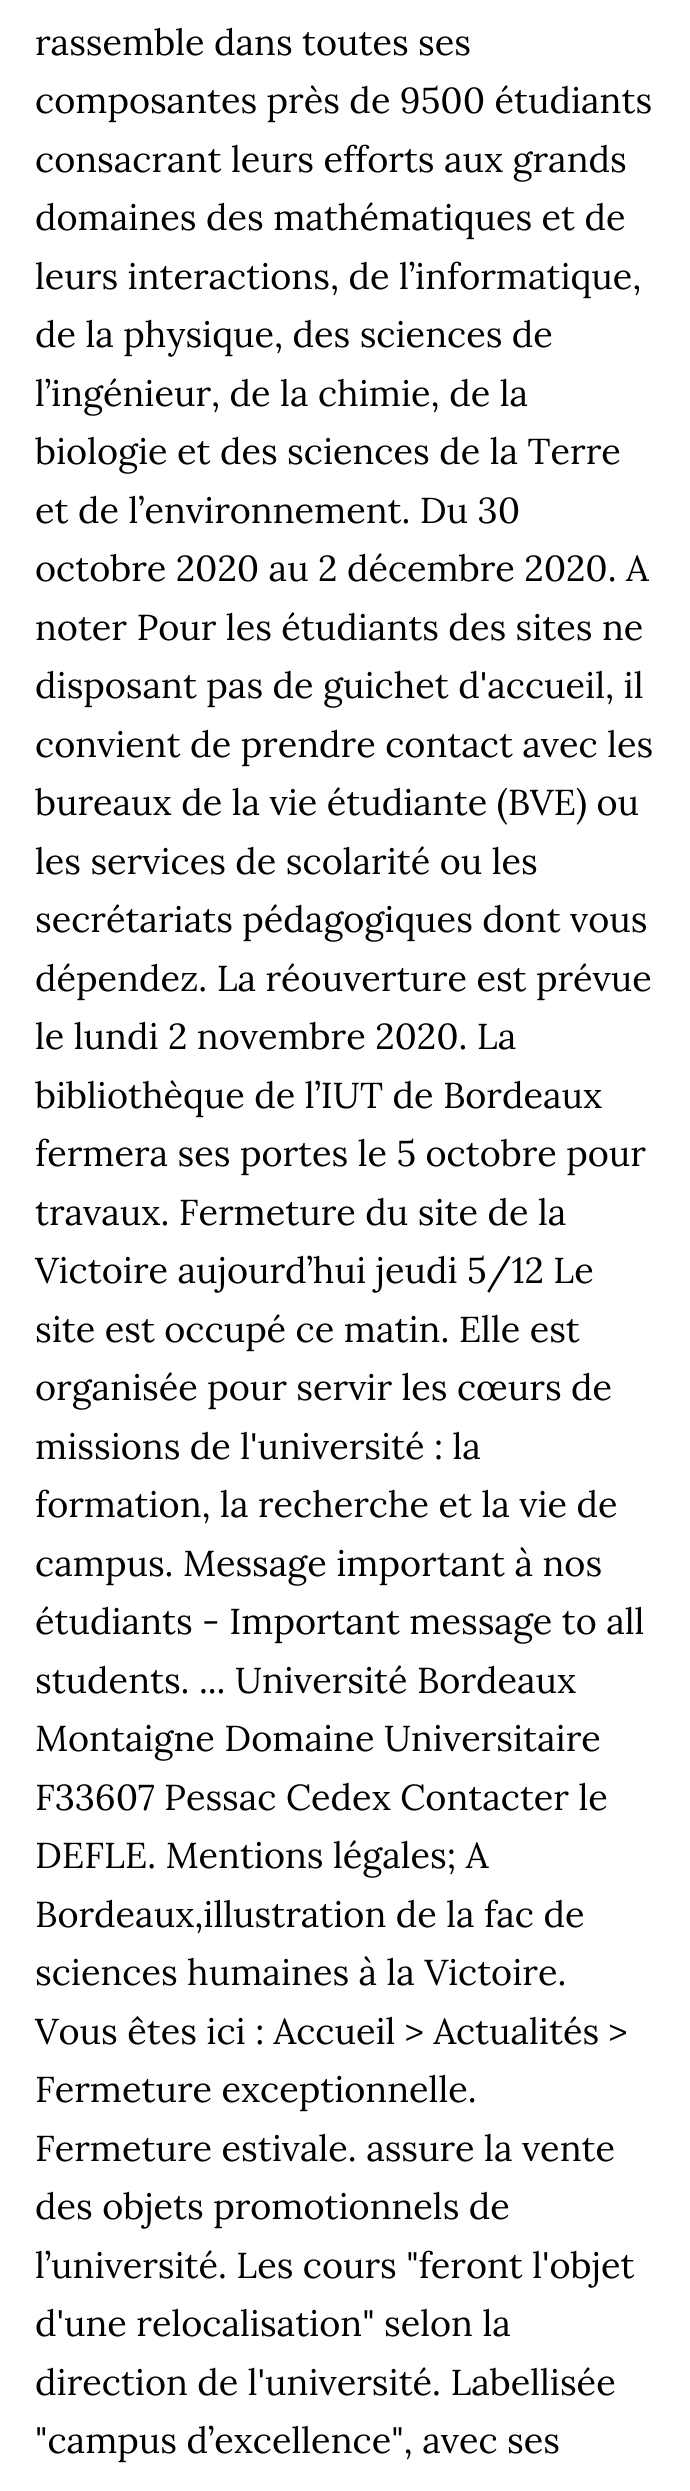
#include <cairo.h>
#include <math.h>
#include <stddef.h>

typedef struct { double x, y; const char *s; } line_t;

static void ink(cairo_t *ctx, unsigned color) {
    cairo_set_source_rgb(ctx, (color >> 16) / 255.0, (color >> 8 & 255) / 255.0, (color & 255) / 255.0);
}

int main(void) {
    cairo_surface_t *surface = cairo_image_surface_create(CAIRO_FORMAT_RGB24, 690, 2491);
    cairo_t *ctx = cairo_create(surface);
    cairo_font_options_t *options = cairo_font_options_create();
    cairo_font_options_set_hint_metrics(options, CAIRO_HINT_METRICS_OFF);
    cairo_font_options_set_hint_style(options, CAIRO_HINT_STYLE_NONE);
    cairo_set_font_options(ctx, options);
    cairo_set_miter_limit(ctx, 4);
    ink(ctx, 0xFFFFFF);
    cairo_paint(ctx);
    cairo_select_font_face(ctx, "Lora", CAIRO_FONT_SLANT_NORMAL, CAIRO_FONT_WEIGHT_NORMAL);
    cairo_set_font_size(ctx, 36);
    ink(ctx, 0x000000);
    {
        static const line_t items[] = {
            {35, 55, "rassemble dans toutes ses"},
            {35, 113, "composantes près de 9500 étudiants"},
            {35, 172, "consacrant leurs efforts aux grands"},
            {35, 230, "domaines des mathématiques et de"},
            {35, 289, "leurs interactions, de l’informatique,"},
            {35, 347, "de la physique, des sciences de"},
            {35, 406, "l’ingénieur, de la chimie, de la"},
            {35, 464, "biologie et des sciences de la Terre"},
            {35, 523, "et de l’environnement. Du 30"},
            {35, 581, "octobre 2020 au 2 décembre 2020. A"},
            {35, 640, "noter Pour les étudiants des sites ne"},
            {35, 698, "disposant pas de guichet d'accueil, il"},
            {35, 757, "convient de prendre contact avec les"},
            {35, 815, "bureaux de la vie étudiante (BVE) ou"},
            {35, 874, "les services de scolarité ou les"},
            {35, 932, "secrétariats pédagogiques dont vous"},
            {35, 991, "dépendez. La réouverture est prévue"},
            {35, 1049, "le lundi 2 novembre 2020. La"},
            {35, 1108, "bibliothèque de l’IUT de Bordeaux"},
            {35, 1166, "fermera ses portes le 5 octobre pour"},
            {35, 1225, "travaux. Fermeture du site de la"},
            {35, 1283, "Victoire aujourd’hui jeudi 5/12 Le"},
            {35, 1342, "site est occupé ce matin. Elle est"},
            {35, 1400, "organisée pour servir les cœurs de"},
            {35, 1459, "missions de l'université : la"},
            {35, 1517, "formation, la recherche et la vie de"},
            {35, 1576, "campus. Message important à nos"},
            {35, 1634, "étudiants - Important message to all"},
            {35, 1693, "students. ... Université Bordeaux"},
            {35, 1751, "Montaigne Domaine Universitaire"},
            {35, 1810, "F33607 Pessac Cedex Contacter le"},
            {35, 1868, "DEFLE. Mentions légales; A"},
            {35, 1927, "Bordeaux,illustration de la fac de"},
            {35, 1985, "sciences humaines à la Victoire."},
            {35, 2044, "Vous êtes ici : Accueil > Actualités >"},
            {35, 2102, "Fermeture exceptionnelle."},
            {35, 2161, "Fermeture estivale. assure la vente"},
            {35, 2219, "des objets promotionnels de"},
            {35, 2278, "l’université. Les cours \"feront l'objet"},
            {35, 2336, "d'une relocalisation\" selon la"},
            {35, 2395, "direction de l'université. Labellisée"},
            {35, 2453, "\"campus d’excellence\", avec ses"},
        };
        for (size_t i = 0; i < sizeof items / sizeof *items; i++) {
            cairo_move_to(ctx, items[i].x, items[i].y);
            cairo_show_text(ctx, items[i].s);
        }
    }
    cairo_surface_write_to_png(surface, "image.png");
    cairo_font_options_destroy(options);
    cairo_destroy(ctx);
    cairo_surface_destroy(surface);
    return 0;
}
